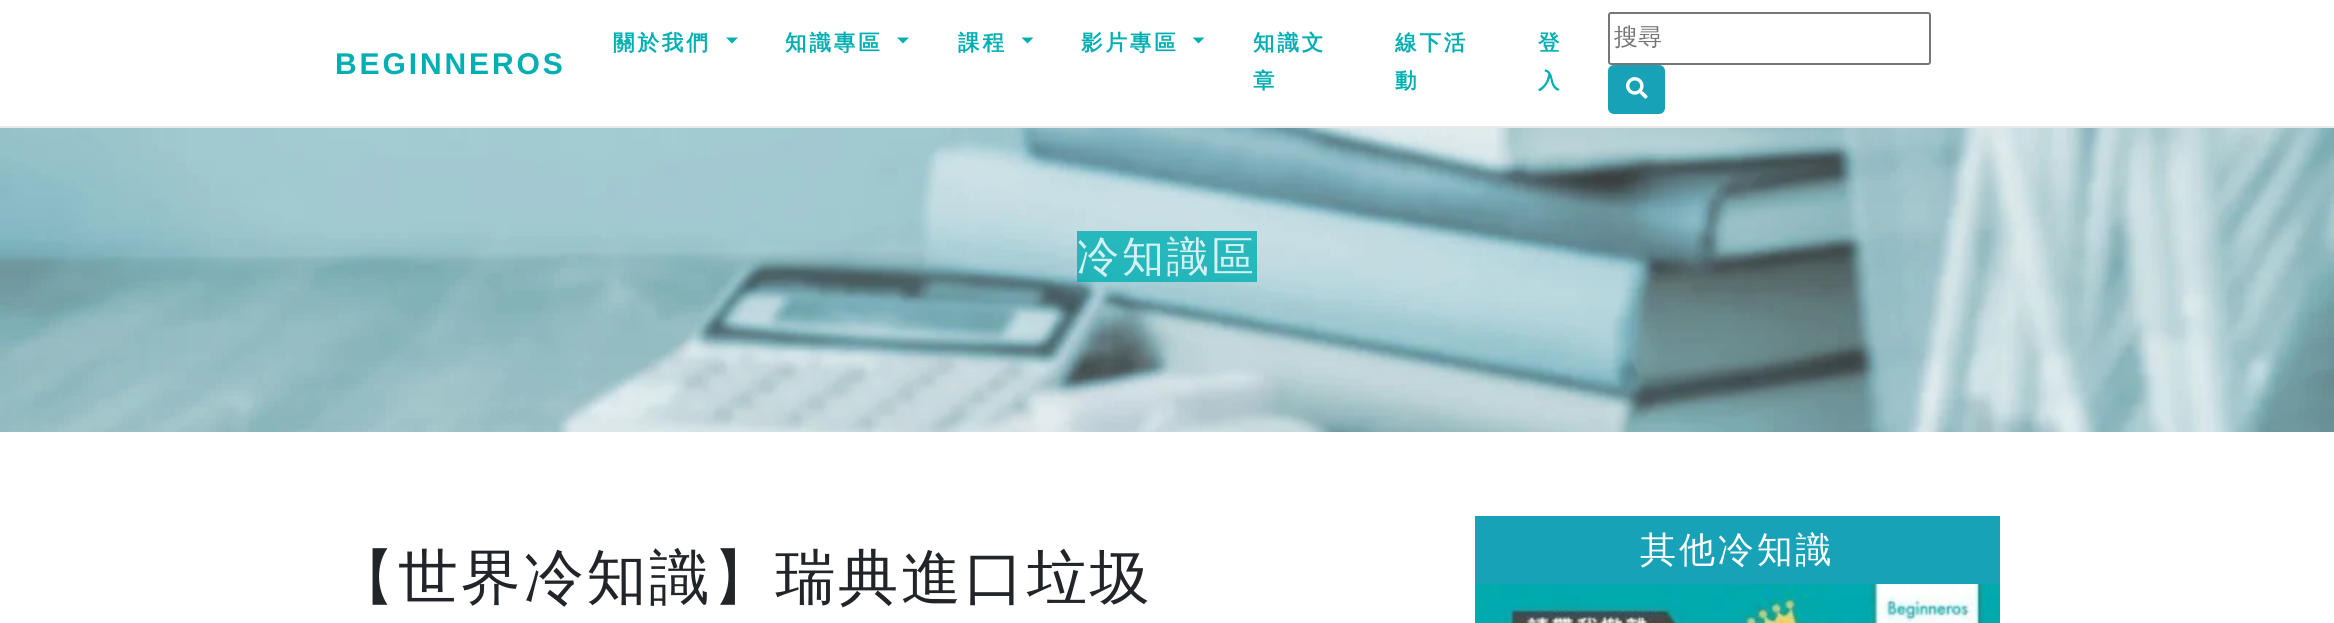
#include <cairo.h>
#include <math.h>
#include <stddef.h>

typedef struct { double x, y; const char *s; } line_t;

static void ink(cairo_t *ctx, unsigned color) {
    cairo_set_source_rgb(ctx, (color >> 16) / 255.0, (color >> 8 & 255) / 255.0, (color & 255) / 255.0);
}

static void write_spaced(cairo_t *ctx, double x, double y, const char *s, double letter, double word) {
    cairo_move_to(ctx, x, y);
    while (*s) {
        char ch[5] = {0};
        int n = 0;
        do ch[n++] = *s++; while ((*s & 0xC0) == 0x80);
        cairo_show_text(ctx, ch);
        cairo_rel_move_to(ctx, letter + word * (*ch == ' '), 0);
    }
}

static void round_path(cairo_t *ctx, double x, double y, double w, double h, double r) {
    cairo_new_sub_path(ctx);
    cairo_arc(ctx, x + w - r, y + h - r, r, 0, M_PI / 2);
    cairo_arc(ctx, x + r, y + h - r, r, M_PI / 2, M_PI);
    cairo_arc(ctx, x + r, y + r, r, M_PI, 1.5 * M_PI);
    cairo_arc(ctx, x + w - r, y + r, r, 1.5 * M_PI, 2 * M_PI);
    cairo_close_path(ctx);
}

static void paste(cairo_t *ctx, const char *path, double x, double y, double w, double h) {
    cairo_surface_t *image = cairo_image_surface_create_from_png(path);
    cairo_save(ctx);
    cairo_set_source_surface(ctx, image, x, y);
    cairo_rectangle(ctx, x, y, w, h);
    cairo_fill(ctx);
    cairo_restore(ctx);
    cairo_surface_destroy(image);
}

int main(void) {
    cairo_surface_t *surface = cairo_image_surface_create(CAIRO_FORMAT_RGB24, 2334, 623);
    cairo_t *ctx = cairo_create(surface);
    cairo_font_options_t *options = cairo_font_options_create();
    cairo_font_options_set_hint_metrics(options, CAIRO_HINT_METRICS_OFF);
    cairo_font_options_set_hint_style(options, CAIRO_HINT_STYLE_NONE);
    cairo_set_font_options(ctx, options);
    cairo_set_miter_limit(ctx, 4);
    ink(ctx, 0xFFFFFF);
    cairo_paint(ctx);
    ink(ctx, 0xE9E9EA);
    cairo_rectangle(ctx, 0, 126, 2334, 2);
    cairo_fill(ctx);
    cairo_select_font_face(ctx, "Liberation Sans", CAIRO_FONT_SLANT_NORMAL, CAIRO_FONT_WEIGHT_BOLD);
    cairo_set_font_size(ctx, 30);
    ink(ctx, 0x00AFB3);
    write_spaced(ctx, 335, 74, "BEGINNEROS", 2.9, 0);
    cairo_select_font_face(ctx, "WenQuanYi Zen Hei", CAIRO_FONT_SLANT_NORMAL, CAIRO_FONT_WEIGHT_BOLD);
    cairo_set_font_size(ctx, 21.5);
    write_spaced(ctx, 613, 50, "關於我們", 2.9, 0);
    cairo_new_path(ctx);
    cairo_move_to(ctx, 726, 37.5);
    cairo_line_to(ctx, 738, 37.5);
    cairo_line_to(ctx, 732, 43.5);
    cairo_close_path(ctx);
    cairo_fill(ctx);
    write_spaced(ctx, 785, 50, "知識專區", 2.9, 0);
    cairo_new_path(ctx);
    cairo_move_to(ctx, 897, 37.5);
    cairo_line_to(ctx, 909, 37.5);
    cairo_line_to(ctx, 903, 43.5);
    cairo_close_path(ctx);
    cairo_fill(ctx);
    write_spaced(ctx, 958, 50, "課程", 2.9, 0);
    cairo_new_path(ctx);
    cairo_move_to(ctx, 1021.5, 37.5);
    cairo_line_to(ctx, 1033.5, 37.5);
    cairo_line_to(ctx, 1027.5, 43.5);
    cairo_close_path(ctx);
    cairo_fill(ctx);
    write_spaced(ctx, 1081, 50, "影片專區", 2.9, 0);
    cairo_new_path(ctx);
    cairo_move_to(ctx, 1192.5, 37.5);
    cairo_line_to(ctx, 1204.5, 37.5);
    cairo_line_to(ctx, 1198.5, 43.5);
    cairo_close_path(ctx);
    cairo_fill(ctx);
    {
        static const line_t items[] = {
            {1253, 50, "知識文"},
            {1253, 88, "章"},
            {1395, 50, "線下活"},
            {1395, 88, "動"},
            {1538, 50, "登"},
            {1538, 88, "入"},
        };
        for (size_t i = 0; i < sizeof items / sizeof *items; i++) {
            write_spaced(ctx, items[i].x, items[i].y, items[i].s, 2.9, 0);
        }
    }
    round_path(ctx, 1609, 13, 321, 51, 2);
    ink(ctx, 0x767676);
    cairo_stroke(ctx);
    cairo_select_font_face(ctx, "WenQuanYi Zen Hei Medium", CAIRO_FONT_SLANT_NORMAL, CAIRO_FONT_WEIGHT_NORMAL);
    cairo_set_font_size(ctx, 24);
    ink(ctx, 0x757575);
    cairo_move_to(ctx, 1614, 45);
    cairo_show_text(ctx, "搜尋");
    ink(ctx, 0x17A2B8);
    round_path(ctx, 1608, 65, 57, 49, 6);
    cairo_fill(ctx);
    paste(ctx, "media/1.png", 1626, 77, 22, 22);
    paste(ctx, "media/2.png", 0, 128, 2334, 304);
    cairo_set_source_rgba(ctx, 0, 0.686, 0.702, 0.8);
    cairo_rectangle(ctx, 1077, 231, 180, 51);
    cairo_fill(ctx);
    cairo_set_font_size(ctx, 42);
    ink(ctx, 0xD4F1F2);
    write_spaced(ctx, 1077, 271, "冷知識區", 2.9, 0);
    cairo_set_font_size(ctx, 60);
    ink(ctx, 0x212529);
    write_spaced(ctx, 335, 598, "【世界冷知識】瑞典進口垃圾", 2.9, 0);
    ink(ctx, 0x17A2B8);
    cairo_rectangle(ctx, 1475, 516, 525, 68);
    cairo_fill(ctx);
    cairo_set_font_size(ctx, 36);
    ink(ctx, 0xFFFFFF);
    write_spaced(ctx, 1640, 562, "其他冷知識", 2.9, 0);
    paste(ctx, "media/3.png", 1475, 584, 525, 39);
    cairo_surface_write_to_png(surface, "image.png");
    cairo_font_options_destroy(options);
    cairo_destroy(ctx);
    cairo_surface_destroy(surface);
    return 0;
}
